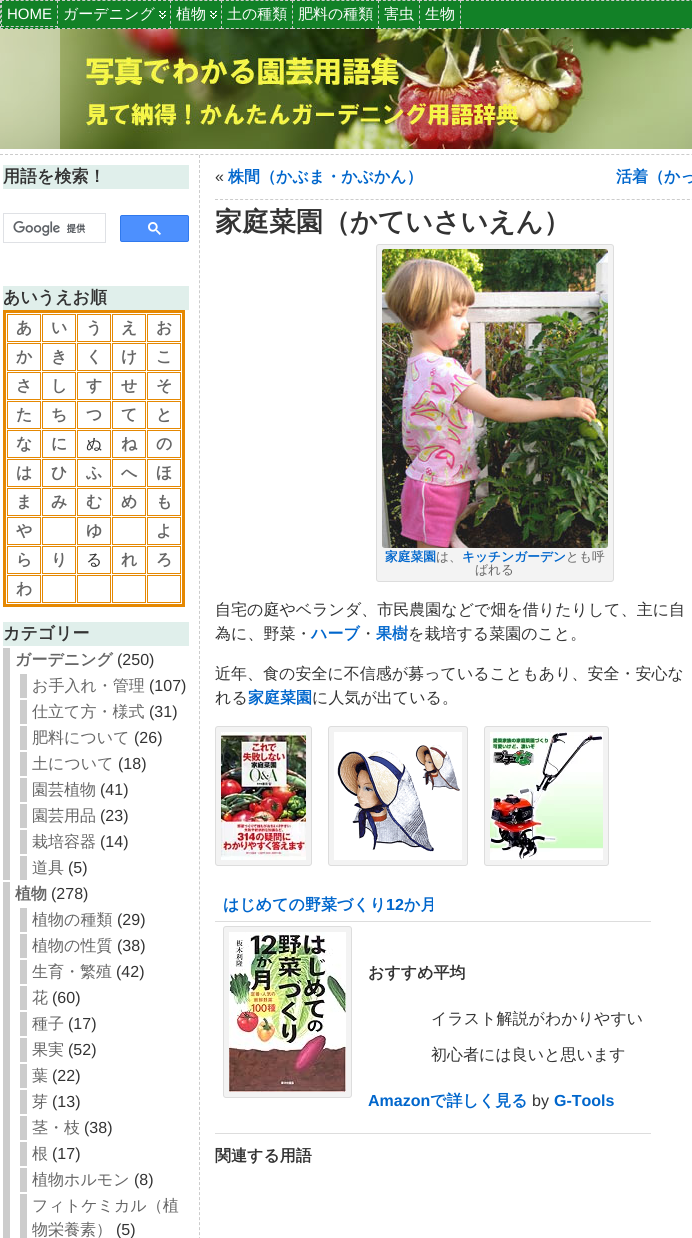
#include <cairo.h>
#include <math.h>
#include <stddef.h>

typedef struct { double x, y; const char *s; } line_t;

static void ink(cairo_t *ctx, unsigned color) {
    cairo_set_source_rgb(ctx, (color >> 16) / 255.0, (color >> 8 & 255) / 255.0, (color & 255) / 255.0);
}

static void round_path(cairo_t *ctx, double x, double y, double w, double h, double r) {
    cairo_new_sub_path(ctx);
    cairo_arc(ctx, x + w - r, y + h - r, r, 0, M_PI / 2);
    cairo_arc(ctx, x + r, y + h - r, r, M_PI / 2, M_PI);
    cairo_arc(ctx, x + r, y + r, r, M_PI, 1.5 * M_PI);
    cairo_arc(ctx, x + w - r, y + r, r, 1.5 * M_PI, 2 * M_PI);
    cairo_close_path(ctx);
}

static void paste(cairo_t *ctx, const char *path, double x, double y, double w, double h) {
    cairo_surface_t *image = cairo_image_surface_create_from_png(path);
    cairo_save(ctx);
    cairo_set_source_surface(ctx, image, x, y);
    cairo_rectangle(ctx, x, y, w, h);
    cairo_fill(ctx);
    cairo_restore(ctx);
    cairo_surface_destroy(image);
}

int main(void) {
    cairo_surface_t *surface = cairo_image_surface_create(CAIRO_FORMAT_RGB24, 692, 1238);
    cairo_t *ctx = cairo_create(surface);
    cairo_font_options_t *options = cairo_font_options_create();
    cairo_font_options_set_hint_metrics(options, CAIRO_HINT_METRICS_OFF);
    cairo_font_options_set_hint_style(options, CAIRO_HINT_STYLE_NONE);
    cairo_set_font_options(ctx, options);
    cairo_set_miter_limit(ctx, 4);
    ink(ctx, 0xFFFFFF);
    cairo_paint(ctx);
    ink(ctx, 0x128127);
    cairo_rectangle(ctx, 0, 0, 692, 29);
    cairo_fill(ctx);
    cairo_new_path(ctx);
    cairo_move_to(ctx, 0, 0.5);
    cairo_line_to(ctx, 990, 0.5);
    ink(ctx, 0xCCCCCC);
    cairo_set_line_width(ctx, 1);
    cairo_set_dash(ctx, (double[]){3, 2.01}, 2, 0);
    cairo_stroke(ctx);
    cairo_new_path(ctx);
    cairo_move_to(ctx, 0, 28.5);
    cairo_line_to(ctx, 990, 28.5);
    cairo_stroke(ctx);
    cairo_new_path(ctx);
    cairo_move_to(ctx, 0.5, 0);
    cairo_line_to(ctx, 0.5, 29);
    cairo_set_dash(ctx, (double[]){3, 2.2}, 2, 0);
    cairo_stroke(ctx);
    ink(ctx, 0x128127);
    cairo_rectangle(ctx, 1, 0, 56, 1);
    cairo_fill(ctx);
    cairo_new_path(ctx);
    cairo_move_to(ctx, 1, 0.5);
    cairo_line_to(ctx, 58, 0.5);
    cairo_move_to(ctx, 1, 26.5);
    cairo_line_to(ctx, 58, 26.5);
    ink(ctx, 0xCCCCCC);
    cairo_set_dash(ctx, (double[]){3, 1.91}, 2, 0);
    cairo_stroke(ctx);
    cairo_new_path(ctx);
    cairo_move_to(ctx, 1.5, 0);
    cairo_line_to(ctx, 1.5, 27);
    cairo_set_dash(ctx, (double[]){3, 1.8}, 2, 0);
    cairo_stroke(ctx);
    cairo_select_font_face(ctx, "Liberation Sans", CAIRO_FONT_SLANT_NORMAL, CAIRO_FONT_WEIGHT_NORMAL);
    cairo_set_font_size(ctx, 15);
    ink(ctx, 0xFFFFFF);
    cairo_move_to(ctx, 7, 19);
    cairo_show_text(ctx, "HOME");
    ink(ctx, 0x128127);
    cairo_rectangle(ctx, 57, 0, 112, 29);
    cairo_fill(ctx);
    paste(ctx, "media/1.png", 159, 11, 7, 8);
    cairo_new_path(ctx);
    cairo_move_to(ctx, 57, 0.5);
    cairo_line_to(ctx, 171, 0.5);
    ink(ctx, 0xCCCCCC);
    cairo_set_dash(ctx, (double[]){3, 2.05}, 2, 0);
    cairo_stroke(ctx);
    cairo_new_path(ctx);
    cairo_move_to(ctx, 57, 28.5);
    cairo_line_to(ctx, 171, 28.5);
    cairo_stroke(ctx);
    cairo_new_path(ctx);
    cairo_move_to(ctx, 57.5, 0);
    cairo_line_to(ctx, 57.5, 29);
    cairo_set_dash(ctx, (double[]){3, 2.2}, 2, 0);
    cairo_stroke(ctx);
    cairo_select_font_face(ctx, "WenQuanYi Zen Hei Medium", CAIRO_FONT_SLANT_NORMAL, CAIRO_FONT_WEIGHT_NORMAL);
    ink(ctx, 0xFFFFFF);
    cairo_move_to(ctx, 63, 19);
    cairo_show_text(ctx, "ガーデニング");
    ink(ctx, 0x128127);
    cairo_rectangle(ctx, 170, 0, 51, 29);
    cairo_fill(ctx);
    paste(ctx, "media/1.png", 210, 11, 7, 8);
    cairo_new_path(ctx);
    cairo_move_to(ctx, 170, 0.5);
    cairo_line_to(ctx, 222, 0.5);
    cairo_move_to(ctx, 170, 28.5);
    cairo_line_to(ctx, 222, 28.5);
    ink(ctx, 0xCCCCCC);
    cairo_set_dash(ctx, (double[]){3, 1.9}, 2, 0);
    cairo_stroke(ctx);
    cairo_new_path(ctx);
    cairo_move_to(ctx, 170.5, 0);
    cairo_line_to(ctx, 170.5, 29);
    cairo_set_dash(ctx, (double[]){3, 2.2}, 2, 0);
    cairo_stroke(ctx);
    ink(ctx, 0xFFFFFF);
    cairo_move_to(ctx, 176, 19);
    cairo_show_text(ctx, "植物");
    ink(ctx, 0x128127);
    cairo_rectangle(ctx, 221, 0, 71, 29);
    cairo_fill(ctx);
    cairo_new_path(ctx);
    cairo_move_to(ctx, 221, 0.5);
    cairo_line_to(ctx, 293, 0.5);
    ink(ctx, 0xCCCCCC);
    cairo_set_dash(ctx, (double[]){3, 1.93}, 2, 0);
    cairo_stroke(ctx);
    cairo_new_path(ctx);
    cairo_move_to(ctx, 221, 28.5);
    cairo_line_to(ctx, 293, 28.5);
    cairo_stroke(ctx);
    cairo_new_path(ctx);
    cairo_move_to(ctx, 221.5, 0);
    cairo_line_to(ctx, 221.5, 29);
    cairo_set_dash(ctx, (double[]){3, 2.2}, 2, 0);
    cairo_stroke(ctx);
    ink(ctx, 0xFFFFFF);
    cairo_move_to(ctx, 227, 19);
    cairo_show_text(ctx, "土の種類");
    ink(ctx, 0x128127);
    cairo_rectangle(ctx, 292, 0, 86, 29);
    cairo_fill(ctx);
    cairo_new_path(ctx);
    cairo_move_to(ctx, 292, 0.5);
    cairo_line_to(ctx, 379, 0.5);
    ink(ctx, 0xCCCCCC);
    cairo_set_dash(ctx, (double[]){3, 1.94}, 2, 0);
    cairo_stroke(ctx);
    cairo_new_path(ctx);
    cairo_move_to(ctx, 292, 28.5);
    cairo_line_to(ctx, 379, 28.5);
    cairo_stroke(ctx);
    cairo_new_path(ctx);
    cairo_move_to(ctx, 292.5, 0);
    cairo_line_to(ctx, 292.5, 29);
    cairo_set_dash(ctx, (double[]){3, 2.2}, 2, 0);
    cairo_stroke(ctx);
    ink(ctx, 0xFFFFFF);
    cairo_move_to(ctx, 298, 19);
    cairo_show_text(ctx, "肥料の種類");
    ink(ctx, 0x128127);
    cairo_rectangle(ctx, 378, 0, 41, 29);
    cairo_fill(ctx);
    cairo_new_path(ctx);
    cairo_move_to(ctx, 378, 0.5);
    cairo_line_to(ctx, 420, 0.5);
    cairo_move_to(ctx, 378, 28.5);
    cairo_line_to(ctx, 420, 28.5);
    ink(ctx, 0xCCCCCC);
    cairo_set_dash(ctx, (double[]){3, 1.88}, 2, 0);
    cairo_stroke(ctx);
    cairo_new_path(ctx);
    cairo_move_to(ctx, 378.5, 0);
    cairo_line_to(ctx, 378.5, 29);
    cairo_set_dash(ctx, (double[]){3, 2.2}, 2, 0);
    cairo_stroke(ctx);
    ink(ctx, 0xFFFFFF);
    cairo_move_to(ctx, 384, 19);
    cairo_show_text(ctx, "害虫");
    ink(ctx, 0x128127);
    cairo_rectangle(ctx, 419, 0, 42, 29);
    cairo_fill(ctx);
    cairo_new_path(ctx);
    cairo_move_to(ctx, 419, 0.5);
    cairo_line_to(ctx, 461, 0.5);
    ink(ctx, 0xCCCCCC);
    cairo_set_dash(ctx, (double[]){3, 1.88}, 2, 0);
    cairo_stroke(ctx);
    cairo_new_path(ctx);
    cairo_move_to(ctx, 460.5, 0);
    cairo_line_to(ctx, 460.5, 29);
    cairo_set_dash(ctx, (double[]){3, 2.2}, 2, 0);
    cairo_stroke(ctx);
    cairo_new_path(ctx);
    cairo_move_to(ctx, 419, 28.5);
    cairo_line_to(ctx, 461, 28.5);
    cairo_set_dash(ctx, (double[]){3, 1.88}, 2, 0);
    cairo_stroke(ctx);
    cairo_new_path(ctx);
    cairo_move_to(ctx, 419.5, 0);
    cairo_line_to(ctx, 419.5, 29);
    cairo_set_dash(ctx, (double[]){3, 2.2}, 2, 0);
    cairo_stroke(ctx);
    ink(ctx, 0xFFFFFF);
    cairo_move_to(ctx, 425, 19);
    cairo_show_text(ctx, "生物");
    paste(ctx, "media/2.png", 0, 29, 692, 120);
    cairo_set_source_rgba(ctx, 1, 1, 1, 0.4);
    cairo_rectangle(ctx, 0, 29, 60, 120);
    cairo_fill(ctx);
    cairo_new_path(ctx);
    cairo_move_to(ctx, 0, 154.5);
    cairo_line_to(ctx, 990, 154.5);
    ink(ctx, 0xCCCCCC);
    cairo_set_dash(ctx, (double[]){3, 2.01}, 2, 0);
    cairo_stroke(ctx);
    cairo_new_path(ctx);
    cairo_move_to(ctx, 199.5, 155);
    cairo_line_to(ctx, 199.5, 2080);
    cairo_stroke(ctx);
    ink(ctx, 0xE0EFEB);
    cairo_rectangle(ctx, 3, 165, 186, 24);
    cairo_fill(ctx);
    cairo_select_font_face(ctx, "WenQuanYi Zen Hei", CAIRO_FONT_SLANT_NORMAL, CAIRO_FONT_WEIGHT_BOLD);
    cairo_set_font_size(ctx, 17);
    ink(ctx, 0x333333);
    cairo_move_to(ctx, 3, 182);
    cairo_show_text(ctx, "用語を検索！");
    cairo_rectangle(ctx, 3.5, 213.5, 102, 29);
    ink(ctx, 0xDFE1E5);
    cairo_set_dash(ctx, NULL, 0, 0);
    cairo_stroke(ctx);
    paste(ctx, "media/3.png", 13, 221, 73, 15);
    ink(ctx, 0x4D90FE);
    round_path(ctx, 120.5, 215.5, 68, 26, 1.5);
    cairo_fill_preserve(ctx);
    ink(ctx, 0x3079ED);
    cairo_stroke(ctx);
    paste(ctx, "media/4.png", 148, 222, 13, 13);
    ink(ctx, 0xE0EFEB);
    cairo_rectangle(ctx, 3, 286, 186, 24);
    cairo_fill(ctx);
    ink(ctx, 0x333333);
    cairo_move_to(ctx, 3, 303);
    cairo_show_text(ctx, "あいうえお順");
    cairo_rectangle(ctx, 4.5, 311.5, 179, 294);
    ink(ctx, 0xE58802);
    cairo_set_line_width(ctx, 3);
    cairo_stroke(ctx);
    cairo_rectangle(ctx, 7.5, 314.5, 33, 27);
    cairo_set_line_width(ctx, 1);
    cairo_stroke(ctx);
    cairo_set_font_size(ctx, 16);
    ink(ctx, 0x666666);
    cairo_move_to(ctx, 16, 333);
    cairo_show_text(ctx, "あ");
    cairo_rectangle(ctx, 42.5, 314.5, 33, 27);
    ink(ctx, 0xE58802);
    cairo_stroke(ctx);
    ink(ctx, 0x666666);
    cairo_move_to(ctx, 51, 333);
    cairo_show_text(ctx, "い");
    cairo_rectangle(ctx, 77.5, 314.5, 33, 27);
    ink(ctx, 0xE58802);
    cairo_stroke(ctx);
    ink(ctx, 0x666666);
    cairo_move_to(ctx, 86, 333);
    cairo_show_text(ctx, "う");
    cairo_rectangle(ctx, 112.5, 314.5, 33, 27);
    ink(ctx, 0xE58802);
    cairo_stroke(ctx);
    ink(ctx, 0x666666);
    cairo_move_to(ctx, 121, 333);
    cairo_show_text(ctx, "え");
    cairo_rectangle(ctx, 147.5, 314.5, 33, 27);
    ink(ctx, 0xE58802);
    cairo_stroke(ctx);
    ink(ctx, 0x666666);
    cairo_move_to(ctx, 156, 333);
    cairo_show_text(ctx, "お");
    cairo_rectangle(ctx, 7.5, 343.5, 33, 27);
    ink(ctx, 0xE58802);
    cairo_stroke(ctx);
    ink(ctx, 0x666666);
    cairo_move_to(ctx, 16, 362);
    cairo_show_text(ctx, "か");
    cairo_rectangle(ctx, 42.5, 343.5, 33, 27);
    ink(ctx, 0xE58802);
    cairo_stroke(ctx);
    ink(ctx, 0x666666);
    cairo_move_to(ctx, 51, 362);
    cairo_show_text(ctx, "き");
    cairo_rectangle(ctx, 77.5, 343.5, 33, 27);
    ink(ctx, 0xE58802);
    cairo_stroke(ctx);
    ink(ctx, 0x666666);
    cairo_move_to(ctx, 86, 362);
    cairo_show_text(ctx, "く");
    cairo_rectangle(ctx, 112.5, 343.5, 33, 27);
    ink(ctx, 0xE58802);
    cairo_stroke(ctx);
    ink(ctx, 0x666666);
    cairo_move_to(ctx, 121, 362);
    cairo_show_text(ctx, "け");
    cairo_rectangle(ctx, 147.5, 343.5, 33, 27);
    ink(ctx, 0xE58802);
    cairo_stroke(ctx);
    ink(ctx, 0x666666);
    cairo_move_to(ctx, 156, 362);
    cairo_show_text(ctx, "こ");
    cairo_rectangle(ctx, 7.5, 372.5, 33, 27);
    ink(ctx, 0xE58802);
    cairo_stroke(ctx);
    ink(ctx, 0x666666);
    cairo_move_to(ctx, 16, 391);
    cairo_show_text(ctx, "さ");
    cairo_rectangle(ctx, 42.5, 372.5, 33, 27);
    ink(ctx, 0xE58802);
    cairo_stroke(ctx);
    ink(ctx, 0x666666);
    cairo_move_to(ctx, 51, 391);
    cairo_show_text(ctx, "し");
    cairo_rectangle(ctx, 77.5, 372.5, 33, 27);
    ink(ctx, 0xE58802);
    cairo_stroke(ctx);
    ink(ctx, 0x666666);
    cairo_move_to(ctx, 86, 391);
    cairo_show_text(ctx, "す");
    cairo_rectangle(ctx, 112.5, 372.5, 33, 27);
    ink(ctx, 0xE58802);
    cairo_stroke(ctx);
    ink(ctx, 0x666666);
    cairo_move_to(ctx, 121, 391);
    cairo_show_text(ctx, "せ");
    cairo_rectangle(ctx, 147.5, 372.5, 33, 27);
    ink(ctx, 0xE58802);
    cairo_stroke(ctx);
    ink(ctx, 0x666666);
    cairo_move_to(ctx, 156, 391);
    cairo_show_text(ctx, "そ");
    cairo_rectangle(ctx, 7.5, 401.5, 33, 27);
    ink(ctx, 0xE58802);
    cairo_stroke(ctx);
    ink(ctx, 0x666666);
    cairo_move_to(ctx, 16, 420);
    cairo_show_text(ctx, "た");
    cairo_rectangle(ctx, 42.5, 401.5, 33, 27);
    ink(ctx, 0xE58802);
    cairo_stroke(ctx);
    ink(ctx, 0x666666);
    cairo_move_to(ctx, 51, 420);
    cairo_show_text(ctx, "ち");
    cairo_rectangle(ctx, 77.5, 401.5, 33, 27);
    ink(ctx, 0xE58802);
    cairo_stroke(ctx);
    ink(ctx, 0x666666);
    cairo_move_to(ctx, 86, 420);
    cairo_show_text(ctx, "つ");
    cairo_rectangle(ctx, 112.5, 401.5, 33, 27);
    ink(ctx, 0xE58802);
    cairo_stroke(ctx);
    ink(ctx, 0x666666);
    cairo_move_to(ctx, 121, 420);
    cairo_show_text(ctx, "て");
    cairo_rectangle(ctx, 147.5, 401.5, 33, 27);
    ink(ctx, 0xE58802);
    cairo_stroke(ctx);
    ink(ctx, 0x666666);
    cairo_move_to(ctx, 156, 420);
    cairo_show_text(ctx, "と");
    cairo_rectangle(ctx, 7.5, 430.5, 33, 27);
    ink(ctx, 0xE58802);
    cairo_stroke(ctx);
    ink(ctx, 0x666666);
    cairo_move_to(ctx, 16, 449);
    cairo_show_text(ctx, "な");
    cairo_rectangle(ctx, 42.5, 430.5, 33, 27);
    ink(ctx, 0xE58802);
    cairo_stroke(ctx);
    ink(ctx, 0x666666);
    cairo_move_to(ctx, 51, 449);
    cairo_show_text(ctx, "に");
    cairo_rectangle(ctx, 77.5, 430.5, 33, 27);
    ink(ctx, 0xE58802);
    cairo_stroke(ctx);
    cairo_select_font_face(ctx, "WenQuanYi Zen Hei Medium", CAIRO_FONT_SLANT_NORMAL, CAIRO_FONT_WEIGHT_NORMAL);
    ink(ctx, 0x333333);
    cairo_move_to(ctx, 86, 449);
    cairo_show_text(ctx, "ぬ");
    cairo_rectangle(ctx, 112.5, 430.5, 33, 27);
    ink(ctx, 0xE58802);
    cairo_stroke(ctx);
    cairo_select_font_face(ctx, "WenQuanYi Zen Hei", CAIRO_FONT_SLANT_NORMAL, CAIRO_FONT_WEIGHT_BOLD);
    ink(ctx, 0x666666);
    cairo_move_to(ctx, 121, 449);
    cairo_show_text(ctx, "ね");
    cairo_rectangle(ctx, 147.5, 430.5, 33, 27);
    ink(ctx, 0xE58802);
    cairo_stroke(ctx);
    ink(ctx, 0x666666);
    cairo_move_to(ctx, 156, 449);
    cairo_show_text(ctx, "の");
    cairo_rectangle(ctx, 7.5, 459.5, 33, 27);
    ink(ctx, 0xE58802);
    cairo_stroke(ctx);
    ink(ctx, 0x666666);
    cairo_move_to(ctx, 16, 478);
    cairo_show_text(ctx, "は");
    cairo_rectangle(ctx, 42.5, 459.5, 33, 27);
    ink(ctx, 0xE58802);
    cairo_stroke(ctx);
    ink(ctx, 0x666666);
    cairo_move_to(ctx, 51, 478);
    cairo_show_text(ctx, "ひ");
    cairo_rectangle(ctx, 77.5, 459.5, 33, 27);
    ink(ctx, 0xE58802);
    cairo_stroke(ctx);
    ink(ctx, 0x666666);
    cairo_move_to(ctx, 86, 478);
    cairo_show_text(ctx, "ふ");
    cairo_rectangle(ctx, 112.5, 459.5, 33, 27);
    ink(ctx, 0xE58802);
    cairo_stroke(ctx);
    ink(ctx, 0x666666);
    cairo_move_to(ctx, 121, 478);
    cairo_show_text(ctx, "へ");
    cairo_rectangle(ctx, 147.5, 459.5, 33, 27);
    ink(ctx, 0xE58802);
    cairo_stroke(ctx);
    ink(ctx, 0x666666);
    cairo_move_to(ctx, 156, 478);
    cairo_show_text(ctx, "ほ");
    cairo_rectangle(ctx, 7.5, 488.5, 33, 27);
    ink(ctx, 0xE58802);
    cairo_stroke(ctx);
    ink(ctx, 0x666666);
    cairo_move_to(ctx, 16, 507);
    cairo_show_text(ctx, "ま");
    cairo_rectangle(ctx, 42.5, 488.5, 33, 27);
    ink(ctx, 0xE58802);
    cairo_stroke(ctx);
    ink(ctx, 0x666666);
    cairo_move_to(ctx, 51, 507);
    cairo_show_text(ctx, "み");
    cairo_rectangle(ctx, 77.5, 488.5, 33, 27);
    ink(ctx, 0xE58802);
    cairo_stroke(ctx);
    ink(ctx, 0x666666);
    cairo_move_to(ctx, 86, 507);
    cairo_show_text(ctx, "む");
    cairo_rectangle(ctx, 112.5, 488.5, 33, 27);
    ink(ctx, 0xE58802);
    cairo_stroke(ctx);
    ink(ctx, 0x666666);
    cairo_move_to(ctx, 121, 507);
    cairo_show_text(ctx, "め");
    cairo_rectangle(ctx, 147.5, 488.5, 33, 27);
    ink(ctx, 0xE58802);
    cairo_stroke(ctx);
    ink(ctx, 0x666666);
    cairo_move_to(ctx, 156, 507);
    cairo_show_text(ctx, "も");
    cairo_rectangle(ctx, 7.5, 517.5, 33, 27);
    ink(ctx, 0xE58802);
    cairo_stroke(ctx);
    ink(ctx, 0x666666);
    cairo_move_to(ctx, 16, 536);
    cairo_show_text(ctx, "や");
    cairo_rectangle(ctx, 42.5, 517.5, 33, 27);
    ink(ctx, 0xE58802);
    cairo_stroke(ctx);
    cairo_rectangle(ctx, 77.5, 517.5, 33, 27);
    cairo_stroke(ctx);
    ink(ctx, 0x666666);
    cairo_move_to(ctx, 86, 536);
    cairo_show_text(ctx, "ゆ");
    cairo_rectangle(ctx, 112.5, 517.5, 33, 27);
    ink(ctx, 0xE58802);
    cairo_stroke(ctx);
    cairo_rectangle(ctx, 147.5, 517.5, 33, 27);
    cairo_stroke(ctx);
    ink(ctx, 0x666666);
    cairo_move_to(ctx, 156, 536);
    cairo_show_text(ctx, "よ");
    cairo_rectangle(ctx, 7.5, 546.5, 33, 27);
    ink(ctx, 0xE58802);
    cairo_stroke(ctx);
    ink(ctx, 0x666666);
    cairo_move_to(ctx, 16, 565);
    cairo_show_text(ctx, "ら");
    cairo_rectangle(ctx, 42.5, 546.5, 33, 27);
    ink(ctx, 0xE58802);
    cairo_stroke(ctx);
    ink(ctx, 0x666666);
    cairo_move_to(ctx, 51, 565);
    cairo_show_text(ctx, "り");
    cairo_rectangle(ctx, 77.5, 546.5, 33, 27);
    ink(ctx, 0xE58802);
    cairo_stroke(ctx);
    cairo_select_font_face(ctx, "WenQuanYi Zen Hei Medium", CAIRO_FONT_SLANT_NORMAL, CAIRO_FONT_WEIGHT_NORMAL);
    ink(ctx, 0x333333);
    cairo_move_to(ctx, 86, 565);
    cairo_show_text(ctx, "る");
    cairo_rectangle(ctx, 112.5, 546.5, 33, 27);
    ink(ctx, 0xE58802);
    cairo_stroke(ctx);
    cairo_select_font_face(ctx, "WenQuanYi Zen Hei", CAIRO_FONT_SLANT_NORMAL, CAIRO_FONT_WEIGHT_BOLD);
    ink(ctx, 0x666666);
    cairo_move_to(ctx, 121, 565);
    cairo_show_text(ctx, "れ");
    cairo_rectangle(ctx, 147.5, 546.5, 33, 27);
    ink(ctx, 0xE58802);
    cairo_stroke(ctx);
    ink(ctx, 0x666666);
    cairo_move_to(ctx, 156, 565);
    cairo_show_text(ctx, "ろ");
    cairo_rectangle(ctx, 7.5, 575.5, 33, 27);
    ink(ctx, 0xE58802);
    cairo_stroke(ctx);
    ink(ctx, 0x666666);
    cairo_move_to(ctx, 16, 594);
    cairo_show_text(ctx, "わ");
    cairo_rectangle(ctx, 42.5, 575.5, 33, 27);
    ink(ctx, 0xE58802);
    cairo_stroke(ctx);
    cairo_rectangle(ctx, 77.5, 575.5, 33, 27);
    cairo_stroke(ctx);
    cairo_rectangle(ctx, 112.5, 575.5, 33, 27);
    cairo_stroke(ctx);
    cairo_rectangle(ctx, 147.5, 575.5, 33, 27);
    cairo_stroke(ctx);
    ink(ctx, 0xE0EFEB);
    cairo_rectangle(ctx, 3, 622, 186, 24);
    cairo_fill(ctx);
    cairo_set_font_size(ctx, 17);
    ink(ctx, 0x333333);
    cairo_move_to(ctx, 3, 639);
    cairo_show_text(ctx, "カテゴリー");
    ink(ctx, 0xCCCCCC);
    cairo_rectangle(ctx, 3, 648, 7, 232);
    cairo_fill(ctx);
    cairo_set_font_size(ctx, 16);
    ink(ctx, 0x666666);
    cairo_move_to(ctx, 15, 665);
    cairo_show_text(ctx, "ガーデニング");
    cairo_select_font_face(ctx, "Liberation Sans", CAIRO_FONT_SLANT_NORMAL, CAIRO_FONT_WEIGHT_NORMAL);
    ink(ctx, 0x333333);
    cairo_move_to(ctx, 117, 665);
    cairo_show_text(ctx, "(250)");
    ink(ctx, 0xCCCCCC);
    cairo_rectangle(ctx, 20, 674, 7, 24);
    cairo_fill(ctx);
    cairo_select_font_face(ctx, "WenQuanYi Zen Hei Medium", CAIRO_FONT_SLANT_NORMAL, CAIRO_FONT_WEIGHT_NORMAL);
    ink(ctx, 0x666666);
    cairo_move_to(ctx, 32, 691);
    cairo_show_text(ctx, "お手入れ・管理");
    cairo_select_font_face(ctx, "Liberation Sans", CAIRO_FONT_SLANT_NORMAL, CAIRO_FONT_WEIGHT_NORMAL);
    ink(ctx, 0x333333);
    cairo_move_to(ctx, 149, 691);
    cairo_show_text(ctx, "(107)");
    ink(ctx, 0xCCCCCC);
    cairo_rectangle(ctx, 20, 700, 7, 24);
    cairo_fill(ctx);
    cairo_select_font_face(ctx, "WenQuanYi Zen Hei Medium", CAIRO_FONT_SLANT_NORMAL, CAIRO_FONT_WEIGHT_NORMAL);
    ink(ctx, 0x666666);
    cairo_move_to(ctx, 32, 717);
    cairo_show_text(ctx, "仕立て方・様式");
    cairo_select_font_face(ctx, "Liberation Sans", CAIRO_FONT_SLANT_NORMAL, CAIRO_FONT_WEIGHT_NORMAL);
    ink(ctx, 0x333333);
    cairo_move_to(ctx, 149, 717);
    cairo_show_text(ctx, "(31)");
    ink(ctx, 0xCCCCCC);
    cairo_rectangle(ctx, 20, 726, 7, 24);
    cairo_fill(ctx);
    cairo_select_font_face(ctx, "WenQuanYi Zen Hei Medium", CAIRO_FONT_SLANT_NORMAL, CAIRO_FONT_WEIGHT_NORMAL);
    ink(ctx, 0x666666);
    cairo_move_to(ctx, 32, 743);
    cairo_show_text(ctx, "肥料について");
    cairo_select_font_face(ctx, "Liberation Sans", CAIRO_FONT_SLANT_NORMAL, CAIRO_FONT_WEIGHT_NORMAL);
    ink(ctx, 0x333333);
    cairo_move_to(ctx, 134, 743);
    cairo_show_text(ctx, "(26)");
    ink(ctx, 0xCCCCCC);
    cairo_rectangle(ctx, 20, 752, 7, 24);
    cairo_fill(ctx);
    cairo_select_font_face(ctx, "WenQuanYi Zen Hei Medium", CAIRO_FONT_SLANT_NORMAL, CAIRO_FONT_WEIGHT_NORMAL);
    ink(ctx, 0x666666);
    cairo_move_to(ctx, 32, 769);
    cairo_show_text(ctx, "土について");
    cairo_select_font_face(ctx, "Liberation Sans", CAIRO_FONT_SLANT_NORMAL, CAIRO_FONT_WEIGHT_NORMAL);
    ink(ctx, 0x333333);
    cairo_move_to(ctx, 118, 769);
    cairo_show_text(ctx, "(18)");
    ink(ctx, 0xCCCCCC);
    cairo_rectangle(ctx, 20, 778, 7, 24);
    cairo_fill(ctx);
    cairo_select_font_face(ctx, "WenQuanYi Zen Hei Medium", CAIRO_FONT_SLANT_NORMAL, CAIRO_FONT_WEIGHT_NORMAL);
    ink(ctx, 0x666666);
    cairo_move_to(ctx, 32, 795);
    cairo_show_text(ctx, "園芸植物");
    cairo_select_font_face(ctx, "Liberation Sans", CAIRO_FONT_SLANT_NORMAL, CAIRO_FONT_WEIGHT_NORMAL);
    ink(ctx, 0x333333);
    cairo_move_to(ctx, 100, 795);
    cairo_show_text(ctx, "(41)");
    ink(ctx, 0xCCCCCC);
    cairo_rectangle(ctx, 20, 804, 7, 24);
    cairo_fill(ctx);
    cairo_select_font_face(ctx, "WenQuanYi Zen Hei Medium", CAIRO_FONT_SLANT_NORMAL, CAIRO_FONT_WEIGHT_NORMAL);
    ink(ctx, 0x666666);
    cairo_move_to(ctx, 32, 821);
    cairo_show_text(ctx, "園芸用品");
    cairo_select_font_face(ctx, "Liberation Sans", CAIRO_FONT_SLANT_NORMAL, CAIRO_FONT_WEIGHT_NORMAL);
    ink(ctx, 0x333333);
    cairo_move_to(ctx, 100, 821);
    cairo_show_text(ctx, "(23)");
    ink(ctx, 0xCCCCCC);
    cairo_rectangle(ctx, 20, 830, 7, 24);
    cairo_fill(ctx);
    cairo_select_font_face(ctx, "WenQuanYi Zen Hei Medium", CAIRO_FONT_SLANT_NORMAL, CAIRO_FONT_WEIGHT_NORMAL);
    ink(ctx, 0x666666);
    cairo_move_to(ctx, 32, 847);
    cairo_show_text(ctx, "栽培容器");
    cairo_select_font_face(ctx, "Liberation Sans", CAIRO_FONT_SLANT_NORMAL, CAIRO_FONT_WEIGHT_NORMAL);
    ink(ctx, 0x333333);
    cairo_move_to(ctx, 100, 847);
    cairo_show_text(ctx, "(14)");
    ink(ctx, 0xCCCCCC);
    cairo_rectangle(ctx, 20, 856, 7, 24);
    cairo_fill(ctx);
    cairo_select_font_face(ctx, "WenQuanYi Zen Hei Medium", CAIRO_FONT_SLANT_NORMAL, CAIRO_FONT_WEIGHT_NORMAL);
    ink(ctx, 0x666666);
    cairo_move_to(ctx, 32, 873);
    cairo_show_text(ctx, "道具");
    cairo_select_font_face(ctx, "Liberation Sans", CAIRO_FONT_SLANT_NORMAL, CAIRO_FONT_WEIGHT_NORMAL);
    ink(ctx, 0x333333);
    cairo_move_to(ctx, 68, 873);
    cairo_show_text(ctx, "(5)");
    ink(ctx, 0xCCCCCC);
    cairo_rectangle(ctx, 3, 882, 7, 356);
    cairo_fill(ctx);
    cairo_select_font_face(ctx, "WenQuanYi Zen Hei", CAIRO_FONT_SLANT_NORMAL, CAIRO_FONT_WEIGHT_BOLD);
    ink(ctx, 0x666666);
    cairo_move_to(ctx, 15, 899);
    cairo_show_text(ctx, "植物");
    cairo_select_font_face(ctx, "Liberation Sans", CAIRO_FONT_SLANT_NORMAL, CAIRO_FONT_WEIGHT_NORMAL);
    ink(ctx, 0x333333);
    cairo_move_to(ctx, 51, 899);
    cairo_show_text(ctx, "(278)");
    ink(ctx, 0xCCCCCC);
    cairo_rectangle(ctx, 20, 908, 7, 24);
    cairo_fill(ctx);
    cairo_select_font_face(ctx, "WenQuanYi Zen Hei Medium", CAIRO_FONT_SLANT_NORMAL, CAIRO_FONT_WEIGHT_NORMAL);
    ink(ctx, 0x666666);
    cairo_move_to(ctx, 32, 925);
    cairo_show_text(ctx, "植物の種類");
    cairo_select_font_face(ctx, "Liberation Sans", CAIRO_FONT_SLANT_NORMAL, CAIRO_FONT_WEIGHT_NORMAL);
    ink(ctx, 0x333333);
    cairo_move_to(ctx, 117, 925);
    cairo_show_text(ctx, "(29)");
    ink(ctx, 0xCCCCCC);
    cairo_rectangle(ctx, 20, 934, 7, 24);
    cairo_fill(ctx);
    cairo_select_font_face(ctx, "WenQuanYi Zen Hei Medium", CAIRO_FONT_SLANT_NORMAL, CAIRO_FONT_WEIGHT_NORMAL);
    ink(ctx, 0x666666);
    cairo_move_to(ctx, 32, 951);
    cairo_show_text(ctx, "植物の性質");
    cairo_select_font_face(ctx, "Liberation Sans", CAIRO_FONT_SLANT_NORMAL, CAIRO_FONT_WEIGHT_NORMAL);
    ink(ctx, 0x333333);
    cairo_move_to(ctx, 117, 951);
    cairo_show_text(ctx, "(38)");
    ink(ctx, 0xCCCCCC);
    cairo_rectangle(ctx, 20, 960, 7, 24);
    cairo_fill(ctx);
    cairo_select_font_face(ctx, "WenQuanYi Zen Hei Medium", CAIRO_FONT_SLANT_NORMAL, CAIRO_FONT_WEIGHT_NORMAL);
    ink(ctx, 0x666666);
    cairo_move_to(ctx, 32, 977);
    cairo_show_text(ctx, "生育・繁殖");
    cairo_select_font_face(ctx, "Liberation Sans", CAIRO_FONT_SLANT_NORMAL, CAIRO_FONT_WEIGHT_NORMAL);
    ink(ctx, 0x333333);
    cairo_move_to(ctx, 116, 977);
    cairo_show_text(ctx, "(42)");
    ink(ctx, 0xCCCCCC);
    cairo_rectangle(ctx, 20, 986, 7, 24);
    cairo_fill(ctx);
    cairo_select_font_face(ctx, "WenQuanYi Zen Hei Medium", CAIRO_FONT_SLANT_NORMAL, CAIRO_FONT_WEIGHT_NORMAL);
    ink(ctx, 0x666666);
    cairo_move_to(ctx, 32, 1003);
    cairo_show_text(ctx, "花");
    cairo_select_font_face(ctx, "Liberation Sans", CAIRO_FONT_SLANT_NORMAL, CAIRO_FONT_WEIGHT_NORMAL);
    ink(ctx, 0x333333);
    cairo_move_to(ctx, 52, 1003);
    cairo_show_text(ctx, "(60)");
    ink(ctx, 0xCCCCCC);
    cairo_rectangle(ctx, 20, 1012, 7, 24);
    cairo_fill(ctx);
    cairo_select_font_face(ctx, "WenQuanYi Zen Hei Medium", CAIRO_FONT_SLANT_NORMAL, CAIRO_FONT_WEIGHT_NORMAL);
    ink(ctx, 0x666666);
    cairo_move_to(ctx, 32, 1029);
    cairo_show_text(ctx, "種子");
    cairo_select_font_face(ctx, "Liberation Sans", CAIRO_FONT_SLANT_NORMAL, CAIRO_FONT_WEIGHT_NORMAL);
    ink(ctx, 0x333333);
    cairo_move_to(ctx, 68, 1029);
    cairo_show_text(ctx, "(17)");
    ink(ctx, 0xCCCCCC);
    cairo_rectangle(ctx, 20, 1038, 7, 24);
    cairo_fill(ctx);
    cairo_select_font_face(ctx, "WenQuanYi Zen Hei Medium", CAIRO_FONT_SLANT_NORMAL, CAIRO_FONT_WEIGHT_NORMAL);
    ink(ctx, 0x666666);
    cairo_move_to(ctx, 32, 1055);
    cairo_show_text(ctx, "果実");
    cairo_select_font_face(ctx, "Liberation Sans", CAIRO_FONT_SLANT_NORMAL, CAIRO_FONT_WEIGHT_NORMAL);
    ink(ctx, 0x333333);
    cairo_move_to(ctx, 68, 1055);
    cairo_show_text(ctx, "(52)");
    ink(ctx, 0xCCCCCC);
    cairo_rectangle(ctx, 20, 1064, 7, 24);
    cairo_fill(ctx);
    cairo_select_font_face(ctx, "WenQuanYi Zen Hei Medium", CAIRO_FONT_SLANT_NORMAL, CAIRO_FONT_WEIGHT_NORMAL);
    ink(ctx, 0x666666);
    cairo_move_to(ctx, 32, 1081);
    cairo_show_text(ctx, "葉");
    cairo_select_font_face(ctx, "Liberation Sans", CAIRO_FONT_SLANT_NORMAL, CAIRO_FONT_WEIGHT_NORMAL);
    ink(ctx, 0x333333);
    cairo_move_to(ctx, 52, 1081);
    cairo_show_text(ctx, "(22)");
    ink(ctx, 0xCCCCCC);
    cairo_rectangle(ctx, 20, 1090, 7, 24);
    cairo_fill(ctx);
    cairo_select_font_face(ctx, "WenQuanYi Zen Hei Medium", CAIRO_FONT_SLANT_NORMAL, CAIRO_FONT_WEIGHT_NORMAL);
    ink(ctx, 0x666666);
    cairo_move_to(ctx, 32, 1107);
    cairo_show_text(ctx, "芽");
    cairo_select_font_face(ctx, "Liberation Sans", CAIRO_FONT_SLANT_NORMAL, CAIRO_FONT_WEIGHT_NORMAL);
    ink(ctx, 0x333333);
    cairo_move_to(ctx, 52, 1107);
    cairo_show_text(ctx, "(13)");
    ink(ctx, 0xCCCCCC);
    cairo_rectangle(ctx, 20, 1116, 7, 24);
    cairo_fill(ctx);
    cairo_select_font_face(ctx, "WenQuanYi Zen Hei Medium", CAIRO_FONT_SLANT_NORMAL, CAIRO_FONT_WEIGHT_NORMAL);
    ink(ctx, 0x666666);
    cairo_move_to(ctx, 32, 1133);
    cairo_show_text(ctx, "茎・枝");
    cairo_select_font_face(ctx, "Liberation Sans", CAIRO_FONT_SLANT_NORMAL, CAIRO_FONT_WEIGHT_NORMAL);
    ink(ctx, 0x333333);
    cairo_move_to(ctx, 84, 1133);
    cairo_show_text(ctx, "(38)");
    ink(ctx, 0xCCCCCC);
    cairo_rectangle(ctx, 20, 1142, 7, 24);
    cairo_fill(ctx);
    cairo_select_font_face(ctx, "WenQuanYi Zen Hei Medium", CAIRO_FONT_SLANT_NORMAL, CAIRO_FONT_WEIGHT_NORMAL);
    ink(ctx, 0x666666);
    cairo_move_to(ctx, 32, 1159);
    cairo_show_text(ctx, "根");
    cairo_select_font_face(ctx, "Liberation Sans", CAIRO_FONT_SLANT_NORMAL, CAIRO_FONT_WEIGHT_NORMAL);
    ink(ctx, 0x333333);
    cairo_move_to(ctx, 52, 1159);
    cairo_show_text(ctx, "(17)");
    ink(ctx, 0xCCCCCC);
    cairo_rectangle(ctx, 20, 1168, 7, 24);
    cairo_fill(ctx);
    cairo_select_font_face(ctx, "WenQuanYi Zen Hei Medium", CAIRO_FONT_SLANT_NORMAL, CAIRO_FONT_WEIGHT_NORMAL);
    ink(ctx, 0x666666);
    cairo_move_to(ctx, 32, 1185);
    cairo_show_text(ctx, "植物ホルモン");
    cairo_select_font_face(ctx, "Liberation Sans", CAIRO_FONT_SLANT_NORMAL, CAIRO_FONT_WEIGHT_NORMAL);
    ink(ctx, 0x333333);
    cairo_move_to(ctx, 134, 1185);
    cairo_show_text(ctx, "(8)");
    ink(ctx, 0xCCCCCC);
    cairo_rectangle(ctx, 20, 1194, 7, 44);
    cairo_fill(ctx);
    cairo_select_font_face(ctx, "WenQuanYi Zen Hei Medium", CAIRO_FONT_SLANT_NORMAL, CAIRO_FONT_WEIGHT_NORMAL);
    ink(ctx, 0x666666);
    cairo_move_to(ctx, 32, 1211);
    cairo_show_text(ctx, "フィトケミカル（植");
    cairo_move_to(ctx, 32, 1235);
    cairo_show_text(ctx, "物栄養素）");
    cairo_select_font_face(ctx, "Liberation Sans", CAIRO_FONT_SLANT_NORMAL, CAIRO_FONT_WEIGHT_NORMAL);
    ink(ctx, 0x333333);
    cairo_move_to(ctx, 116, 1235);
    cairo_show_text(ctx, "(5)");
    cairo_new_path(ctx);
    cairo_move_to(ctx, 215, 199.5);
    cairo_line_to(ctx, 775, 199.5);
    ink(ctx, 0xCCCCCC);
    cairo_set_dash(ctx, (double[]){3, 2.02}, 2, 0);
    cairo_stroke(ctx);
    ink(ctx, 0x333333);
    cairo_move_to(ctx, 215, 182);
    cairo_show_text(ctx, "«");
    cairo_select_font_face(ctx, "WenQuanYi Zen Hei", CAIRO_FONT_SLANT_NORMAL, CAIRO_FONT_WEIGHT_BOLD);
    ink(ctx, 0x0066CC);
    cairo_move_to(ctx, 228, 182);
    cairo_show_text(ctx, "株間（かぶま・かぶかん）");
    cairo_move_to(ctx, 616, 182);
    cairo_show_text(ctx, "活着（かっ");
    cairo_set_font_size(ctx, 27);
    ink(ctx, 0x333333);
    cairo_move_to(ctx, 215, 231);
    cairo_show_text(ctx, "家庭菜園（かていさいえん）");
    ink(ctx, 0xF3F3F3);
    round_path(ctx, 376.5, 244.5, 237, 337, 2.5);
    cairo_fill_preserve(ctx);
    ink(ctx, 0xDDDDDD);
    cairo_set_dash(ctx, NULL, 0, 0);
    cairo_stroke(ctx);
    paste(ctx, "media/5.png", 382, 249, 226, 299);
    cairo_set_font_size(ctx, 12.75);
    ink(ctx, 0x0066CC);
    cairo_move_to(ctx, 385, 561);
    cairo_show_text(ctx, "家庭菜園");
    cairo_select_font_face(ctx, "WenQuanYi Zen Hei Medium", CAIRO_FONT_SLANT_NORMAL, CAIRO_FONT_WEIGHT_NORMAL);
    ink(ctx, 0x666666);
    cairo_move_to(ctx, 436, 561);
    cairo_show_text(ctx, "は、");
    cairo_select_font_face(ctx, "WenQuanYi Zen Hei", CAIRO_FONT_SLANT_NORMAL, CAIRO_FONT_WEIGHT_BOLD);
    ink(ctx, 0x0066CC);
    cairo_move_to(ctx, 462, 561);
    cairo_show_text(ctx, "キッチンガーデン");
    cairo_select_font_face(ctx, "WenQuanYi Zen Hei Medium", CAIRO_FONT_SLANT_NORMAL, CAIRO_FONT_WEIGHT_NORMAL);
    ink(ctx, 0x666666);
    cairo_move_to(ctx, 566, 561);
    cairo_show_text(ctx, "とも呼");
    cairo_move_to(ctx, 475, 574);
    cairo_show_text(ctx, "ばれる");
    cairo_set_font_size(ctx, 16);
    ink(ctx, 0x333333);
    cairo_move_to(ctx, 215, 615);
    cairo_show_text(ctx, "自宅の庭やベランダ、市民農園などで畑を借りたりして、主に自");
    cairo_move_to(ctx, 215, 639);
    cairo_show_text(ctx, "為に、野菜・");
    cairo_select_font_face(ctx, "WenQuanYi Zen Hei", CAIRO_FONT_SLANT_NORMAL, CAIRO_FONT_WEIGHT_BOLD);
    ink(ctx, 0x0066CC);
    cairo_move_to(ctx, 311, 639);
    cairo_show_text(ctx, "ハーブ");
    cairo_select_font_face(ctx, "WenQuanYi Zen Hei Medium", CAIRO_FONT_SLANT_NORMAL, CAIRO_FONT_WEIGHT_NORMAL);
    ink(ctx, 0x333333);
    cairo_move_to(ctx, 360, 639);
    cairo_show_text(ctx, "・");
    cairo_select_font_face(ctx, "WenQuanYi Zen Hei", CAIRO_FONT_SLANT_NORMAL, CAIRO_FONT_WEIGHT_BOLD);
    ink(ctx, 0x0066CC);
    cairo_move_to(ctx, 376, 639);
    cairo_show_text(ctx, "果樹");
    cairo_select_font_face(ctx, "WenQuanYi Zen Hei Medium", CAIRO_FONT_SLANT_NORMAL, CAIRO_FONT_WEIGHT_NORMAL);
    ink(ctx, 0x333333);
    {
        static const line_t items[] = {
            {408, 639, "を栽培する菜園のこと。"},
            {215, 679, "近年、食の安全に不信感が募っていることもあり、安全・安心な"},
            {215, 703, "れる"},
        };
        for (size_t i = 0; i < sizeof items / sizeof *items; i++) {
            cairo_move_to(ctx, items[i].x, items[i].y);
            cairo_show_text(ctx, items[i].s);
        }
    }
    cairo_select_font_face(ctx, "WenQuanYi Zen Hei", CAIRO_FONT_SLANT_NORMAL, CAIRO_FONT_WEIGHT_BOLD);
    ink(ctx, 0x0066CC);
    cairo_move_to(ctx, 248, 703);
    cairo_show_text(ctx, "家庭菜園");
    cairo_select_font_face(ctx, "WenQuanYi Zen Hei Medium", CAIRO_FONT_SLANT_NORMAL, CAIRO_FONT_WEIGHT_NORMAL);
    ink(ctx, 0x333333);
    cairo_move_to(ctx, 312, 703);
    cairo_show_text(ctx, "に人気が出ている。");
    ink(ctx, 0xF3F3F3);
    round_path(ctx, 215.5, 726.5, 96, 139, 2.5);
    cairo_fill_preserve(ctx);
    ink(ctx, 0xDDDDDD);
    cairo_stroke(ctx);
    ink(ctx, 0xF3F3F3);
    round_path(ctx, 328.5, 726.5, 139, 139, 2.5);
    cairo_fill_preserve(ctx);
    ink(ctx, 0xDDDDDD);
    cairo_stroke(ctx);
    ink(ctx, 0xF3F3F3);
    round_path(ctx, 484.5, 726.5, 124, 139, 2.5);
    cairo_fill_preserve(ctx);
    ink(ctx, 0xDDDDDD);
    cairo_stroke(ctx);
    paste(ctx, "media/6.png", 221, 732, 85, 128);
    paste(ctx, "media/7.png", 334, 732, 128, 128);
    paste(ctx, "media/8.png", 490, 732, 113, 128);
    cairo_rectangle(ctx, 215, 921, 436, 1);
    cairo_fill(ctx);
    cairo_select_font_face(ctx, "WenQuanYi Zen Hei", CAIRO_FONT_SLANT_NORMAL, CAIRO_FONT_WEIGHT_BOLD);
    ink(ctx, 0x0066CC);
    cairo_move_to(ctx, 223, 910);
    cairo_show_text(ctx, "はじめての野菜づくり");
    cairo_select_font_face(ctx, "Liberation Sans", CAIRO_FONT_SLANT_NORMAL, CAIRO_FONT_WEIGHT_BOLD);
    cairo_move_to(ctx, 386, 910);
    cairo_show_text(ctx, "12");
    cairo_select_font_face(ctx, "WenQuanYi Zen Hei", CAIRO_FONT_SLANT_NORMAL, CAIRO_FONT_WEIGHT_BOLD);
    cairo_move_to(ctx, 404, 910);
    cairo_show_text(ctx, "か月");
    ink(ctx, 0xF3F3F3);
    round_path(ctx, 223.5, 926.5, 128, 171, 2.5);
    cairo_fill_preserve(ctx);
    ink(ctx, 0xDDDDDD);
    cairo_stroke(ctx);
    paste(ctx, "media/9.png", 229, 932, 117, 160);
    cairo_rectangle(ctx, 215, 1133, 436, 1);
    cairo_fill(ctx);
    ink(ctx, 0x333333);
    cairo_move_to(ctx, 368, 978);
    cairo_show_text(ctx, "おすすめ平均");
    cairo_select_font_face(ctx, "WenQuanYi Zen Hei Medium", CAIRO_FONT_SLANT_NORMAL, CAIRO_FONT_WEIGHT_NORMAL);
    cairo_move_to(ctx, 431, 1024);
    cairo_show_text(ctx, "イラスト解説がわかりやすい");
    cairo_move_to(ctx, 431, 1060);
    cairo_show_text(ctx, "初心者には良いと思います");
    cairo_select_font_face(ctx, "Liberation Sans", CAIRO_FONT_SLANT_NORMAL, CAIRO_FONT_WEIGHT_BOLD);
    ink(ctx, 0x0066CC);
    cairo_move_to(ctx, 368, 1106);
    cairo_show_text(ctx, "Amazon");
    cairo_select_font_face(ctx, "WenQuanYi Zen Hei", CAIRO_FONT_SLANT_NORMAL, CAIRO_FONT_WEIGHT_BOLD);
    cairo_move_to(ctx, 430, 1106);
    cairo_show_text(ctx, "で詳しく見る");
    cairo_select_font_face(ctx, "Liberation Sans", CAIRO_FONT_SLANT_NORMAL, CAIRO_FONT_WEIGHT_NORMAL);
    ink(ctx, 0x333333);
    cairo_move_to(ctx, 532, 1106);
    cairo_show_text(ctx, "by");
    cairo_select_font_face(ctx, "Liberation Sans", CAIRO_FONT_SLANT_NORMAL, CAIRO_FONT_WEIGHT_BOLD);
    ink(ctx, 0x0066CC);
    cairo_move_to(ctx, 554, 1106);
    cairo_show_text(ctx, "G-Tools");
    cairo_select_font_face(ctx, "WenQuanYi Zen Hei", CAIRO_FONT_SLANT_NORMAL, CAIRO_FONT_WEIGHT_BOLD);
    ink(ctx, 0x333333);
    cairo_move_to(ctx, 215, 1161);
    cairo_show_text(ctx, "関連する用語");
    cairo_surface_write_to_png(surface, "image.png");
    cairo_font_options_destroy(options);
    cairo_destroy(ctx);
    cairo_surface_destroy(surface);
    return 0;
}
